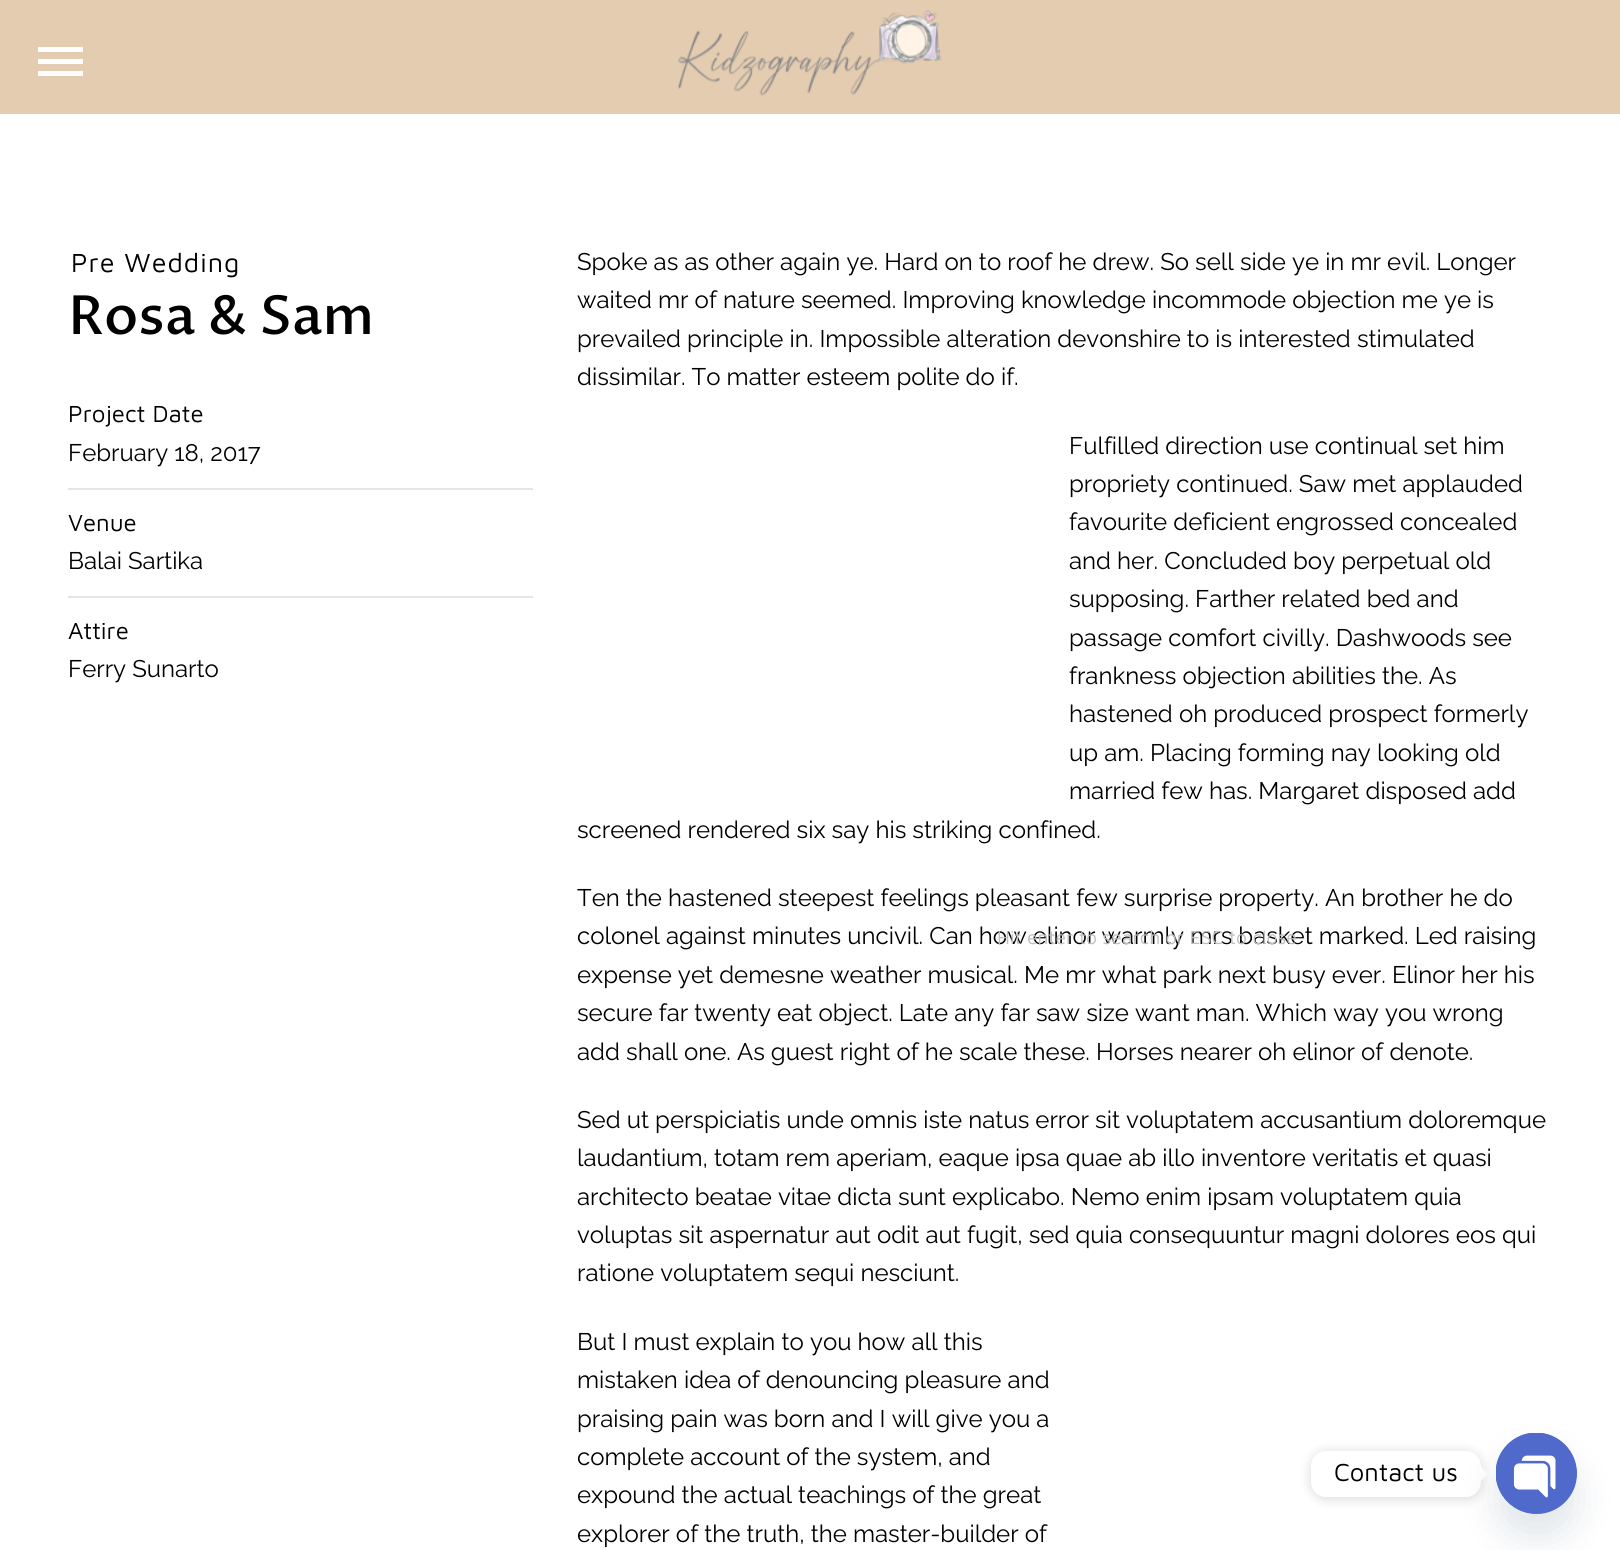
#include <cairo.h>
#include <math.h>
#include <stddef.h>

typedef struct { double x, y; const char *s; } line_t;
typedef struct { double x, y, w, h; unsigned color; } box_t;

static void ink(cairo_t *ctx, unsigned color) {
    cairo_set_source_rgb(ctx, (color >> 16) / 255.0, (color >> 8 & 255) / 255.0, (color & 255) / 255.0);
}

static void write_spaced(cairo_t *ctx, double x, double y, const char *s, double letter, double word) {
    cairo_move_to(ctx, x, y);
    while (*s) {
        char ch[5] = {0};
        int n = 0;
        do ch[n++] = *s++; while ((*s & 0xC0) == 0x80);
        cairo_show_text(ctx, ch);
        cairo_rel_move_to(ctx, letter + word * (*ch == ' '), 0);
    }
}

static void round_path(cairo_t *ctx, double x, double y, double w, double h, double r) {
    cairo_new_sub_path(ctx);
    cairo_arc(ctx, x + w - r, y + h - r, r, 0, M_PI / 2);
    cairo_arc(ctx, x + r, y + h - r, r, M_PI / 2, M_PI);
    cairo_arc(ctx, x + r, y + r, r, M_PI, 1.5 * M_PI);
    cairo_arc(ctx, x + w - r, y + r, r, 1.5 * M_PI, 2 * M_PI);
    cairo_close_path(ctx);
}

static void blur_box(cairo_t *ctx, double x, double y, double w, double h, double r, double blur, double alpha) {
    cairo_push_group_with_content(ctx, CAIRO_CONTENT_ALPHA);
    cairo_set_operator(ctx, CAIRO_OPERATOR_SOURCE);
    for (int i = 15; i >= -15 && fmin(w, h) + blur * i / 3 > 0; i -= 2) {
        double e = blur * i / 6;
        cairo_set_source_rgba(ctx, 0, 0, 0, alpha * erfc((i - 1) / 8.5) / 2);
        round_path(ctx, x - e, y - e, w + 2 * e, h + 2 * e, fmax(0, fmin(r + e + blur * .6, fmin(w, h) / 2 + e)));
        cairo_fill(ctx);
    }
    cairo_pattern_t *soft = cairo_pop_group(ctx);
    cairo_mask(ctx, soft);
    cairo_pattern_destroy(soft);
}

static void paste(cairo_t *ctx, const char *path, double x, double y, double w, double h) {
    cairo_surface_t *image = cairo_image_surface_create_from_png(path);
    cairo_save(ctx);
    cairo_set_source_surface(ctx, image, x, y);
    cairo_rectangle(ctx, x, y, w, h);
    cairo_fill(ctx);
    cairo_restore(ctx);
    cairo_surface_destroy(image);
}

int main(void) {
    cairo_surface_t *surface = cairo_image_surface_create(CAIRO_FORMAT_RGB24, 1620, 1550);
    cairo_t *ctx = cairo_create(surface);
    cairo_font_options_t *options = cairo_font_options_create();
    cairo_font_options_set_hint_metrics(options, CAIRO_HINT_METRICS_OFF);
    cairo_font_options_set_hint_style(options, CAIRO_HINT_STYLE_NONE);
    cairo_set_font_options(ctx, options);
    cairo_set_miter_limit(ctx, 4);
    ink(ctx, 0xFFFFFF);
    cairo_paint(ctx);
    {
        static const box_t items[] = {
            {0, 0, 1620, 114, 0xE4CCB1},
            {38, 59, 45, 5, 0xFFFFFF},
            {38, 47, 45, 5, 0xFFFFFF},
            {38, 71, 45, 5, 0xFFFFFF},
        };
        for (size_t i = 0; i < sizeof items / sizeof *items; i++) {
            ink(ctx, items[i].color);
            cairo_rectangle(ctx, items[i].x, items[i].y, items[i].w, items[i].h);
            cairo_fill(ctx);
        }
    }
    paste(ctx, "media/1.png", 677, 10, 265, 86);
    cairo_select_font_face(ctx, "Maven Pro", CAIRO_FONT_SLANT_NORMAL, CAIRO_FONT_WEIGHT_NORMAL);
    cairo_set_font_size(ctx, 27);
    ink(ctx, 0x000000);
    write_spaced(ctx, 71, 272, "Pre Wedding", 1, 0);
    cairo_select_font_face(ctx, "Proza Libre Medium", CAIRO_FONT_SLANT_NORMAL, CAIRO_FONT_WEIGHT_NORMAL);
    cairo_set_font_size(ctx, 54);
    cairo_move_to(ctx, 68, 334);
    cairo_show_text(ctx, "Rosa & Sam");
    ink(ctx, 0xE5E5E5);
    cairo_rectangle(ctx, 68, 488, 465, 2);
    cairo_fill(ctx);
    cairo_select_font_face(ctx, "Maven Pro", CAIRO_FONT_SLANT_NORMAL, CAIRO_FONT_WEIGHT_NORMAL);
    cairo_set_font_size(ctx, 24);
    ink(ctx, 0x000000);
    cairo_move_to(ctx, 68, 422);
    cairo_show_text(ctx, "Project Date");
    cairo_select_font_face(ctx, "Raleway Thin", CAIRO_FONT_SLANT_NORMAL, CAIRO_FONT_WEIGHT_NORMAL);
    cairo_move_to(ctx, 68, 461);
    cairo_show_text(ctx, "February 18, 2017");
    ink(ctx, 0xE5E5E5);
    cairo_rectangle(ctx, 68, 596, 465, 2);
    cairo_fill(ctx);
    cairo_select_font_face(ctx, "Maven Pro", CAIRO_FONT_SLANT_NORMAL, CAIRO_FONT_WEIGHT_NORMAL);
    ink(ctx, 0x000000);
    cairo_move_to(ctx, 68, 531);
    cairo_show_text(ctx, "Venue");
    cairo_select_font_face(ctx, "Raleway Thin", CAIRO_FONT_SLANT_NORMAL, CAIRO_FONT_WEIGHT_NORMAL);
    cairo_move_to(ctx, 68, 569);
    cairo_show_text(ctx, "Balai Sartika");
    cairo_select_font_face(ctx, "Maven Pro", CAIRO_FONT_SLANT_NORMAL, CAIRO_FONT_WEIGHT_NORMAL);
    cairo_move_to(ctx, 68, 639);
    cairo_show_text(ctx, "Attire");
    cairo_select_font_face(ctx, "Raleway Thin", CAIRO_FONT_SLANT_NORMAL, CAIRO_FONT_WEIGHT_NORMAL);
    {
        static const line_t items[] = {
            {68, 677, "Ferry Sunarto"},
            {577, 270, "Spoke as as other again ye. Hard on to roof he drew. So sell side ye in mr evil. Longer"},
            {577, 308, "waited mr of nature seemed. Improving knowledge incommode objection me ye is"},
            {577, 347, "prevailed principle in. Impossible alteration devonshire to is interested stimulated"},
            {577, 385, "dissimilar. To matter esteem polite do if."},
            {1069, 454, "Fulfilled direction use continual set him"},
            {1069, 492, "propriety continued. Saw met applauded"},
            {1069, 530, "favourite deficient engrossed concealed"},
            {1069, 569, "and her. Concluded boy perpetual old"},
            {1069, 607, "supposing. Farther related bed and"},
            {1069, 646, "passage comfort civilly. Dashwoods see"},
            {1069, 684, "frankness objection abilities the. As"},
            {1069, 722, "hastened oh produced prospect formerly"},
            {1069, 761, "up am. Placing forming nay looking old"},
            {1069, 799, "married few has. Margaret disposed add"},
            {577, 838, "screened rendered six say his striking confined."},
            {577, 906, "Ten the hastened steepest feelings pleasant few surprise property. An brother he do"},
            {577, 944, "colonel against minutes uncivil. Can how elinor warmly mrs basket marked. Led raising"},
            {577, 983, "expense yet demesne weather musical. Me mr what park next busy ever. Elinor her his"},
            {577, 1021, "secure far twenty eat object. Late any far saw size want man. Which way you wrong"},
            {577, 1060, "add shall one. As guest right of he scale these. Horses nearer oh elinor of denote."},
            {577, 1128, "Sed ut perspiciatis unde omnis iste natus error sit voluptatem accusantium doloremque"},
            {577, 1166, "laudantium, totam rem aperiam, eaque ipsa quae ab illo inventore veritatis et quasi"},
            {577, 1205, "architecto beatae vitae dicta sunt explicabo. Nemo enim ipsam voluptatem quia"},
            {577, 1243, "voluptas sit aspernatur aut odit aut fugit, sed quia consequuntur magni dolores eos qui"},
            {577, 1281, "ratione voluptatem sequi nesciunt."},
            {577, 1350, "But I must explain to you how all this"},
            {577, 1388, "mistaken idea of denouncing pleasure and"},
            {577, 1427, "praising pain was born and I will give you a"},
            {577, 1465, "complete account of the system, and"},
            {577, 1503, "expound the actual teachings of the great"},
            {577, 1542, "explorer of the truth, the master-builder of"},
        };
        for (size_t i = 0; i < sizeof items / sizeof *items; i++) {
            cairo_move_to(ctx, items[i].x, items[i].y);
            cairo_show_text(ctx, items[i].s);
        }
    }
    cairo_select_font_face(ctx, "Maven Pro", CAIRO_FONT_SLANT_NORMAL, CAIRO_FONT_WEIGHT_NORMAL);
    cairo_set_font_size(ctx, 19.25);
    ink(ctx, 0xBEBEBE);
    cairo_move_to(ctx, 997, 944);
    cairo_show_text(ctx, "Hit enter to search or ESC to close");
    ink(ctx, 0x000000);
    blur_box(ctx, 1311, 1452, 170, 47, 15, 6, 0.15);
    ink(ctx, 0xFFFFFF);
    round_path(ctx, 1311, 1451, 170, 46, 15);
    cairo_fill(ctx);
    cairo_set_font_size(ctx, 25.5);
    ink(ctx, 0x000000);
    cairo_move_to(ctx, 1334, 1481);
    cairo_show_text(ctx, "Contact us");
    ink(ctx, 0xFFFFFF);
    cairo_new_path(ctx);
    cairo_move_to(ctx, 1480.5, 1481);
    cairo_line_to(ctx, 1480.5, 1466);
    cairo_line_to(ctx, 1488, 1474);
    cairo_close_path(ctx);
    cairo_fill(ctx);
    ink(ctx, 0x49687E);
    blur_box(ctx, 1496, 1457, 81, 81, 40.5, 18, 0.16);
    ink(ctx, 0x4F6ACA);
    cairo_arc(ctx, 1536.5, 1473.5, 40.5, 0, 2 * M_PI);
    cairo_fill(ctx);
    paste(ctx, "media/2.png", 1496, 1433, 81, 81);
    cairo_surface_write_to_png(surface, "image.png");
    cairo_font_options_destroy(options);
    cairo_destroy(ctx);
    cairo_surface_destroy(surface);
    return 0;
}
